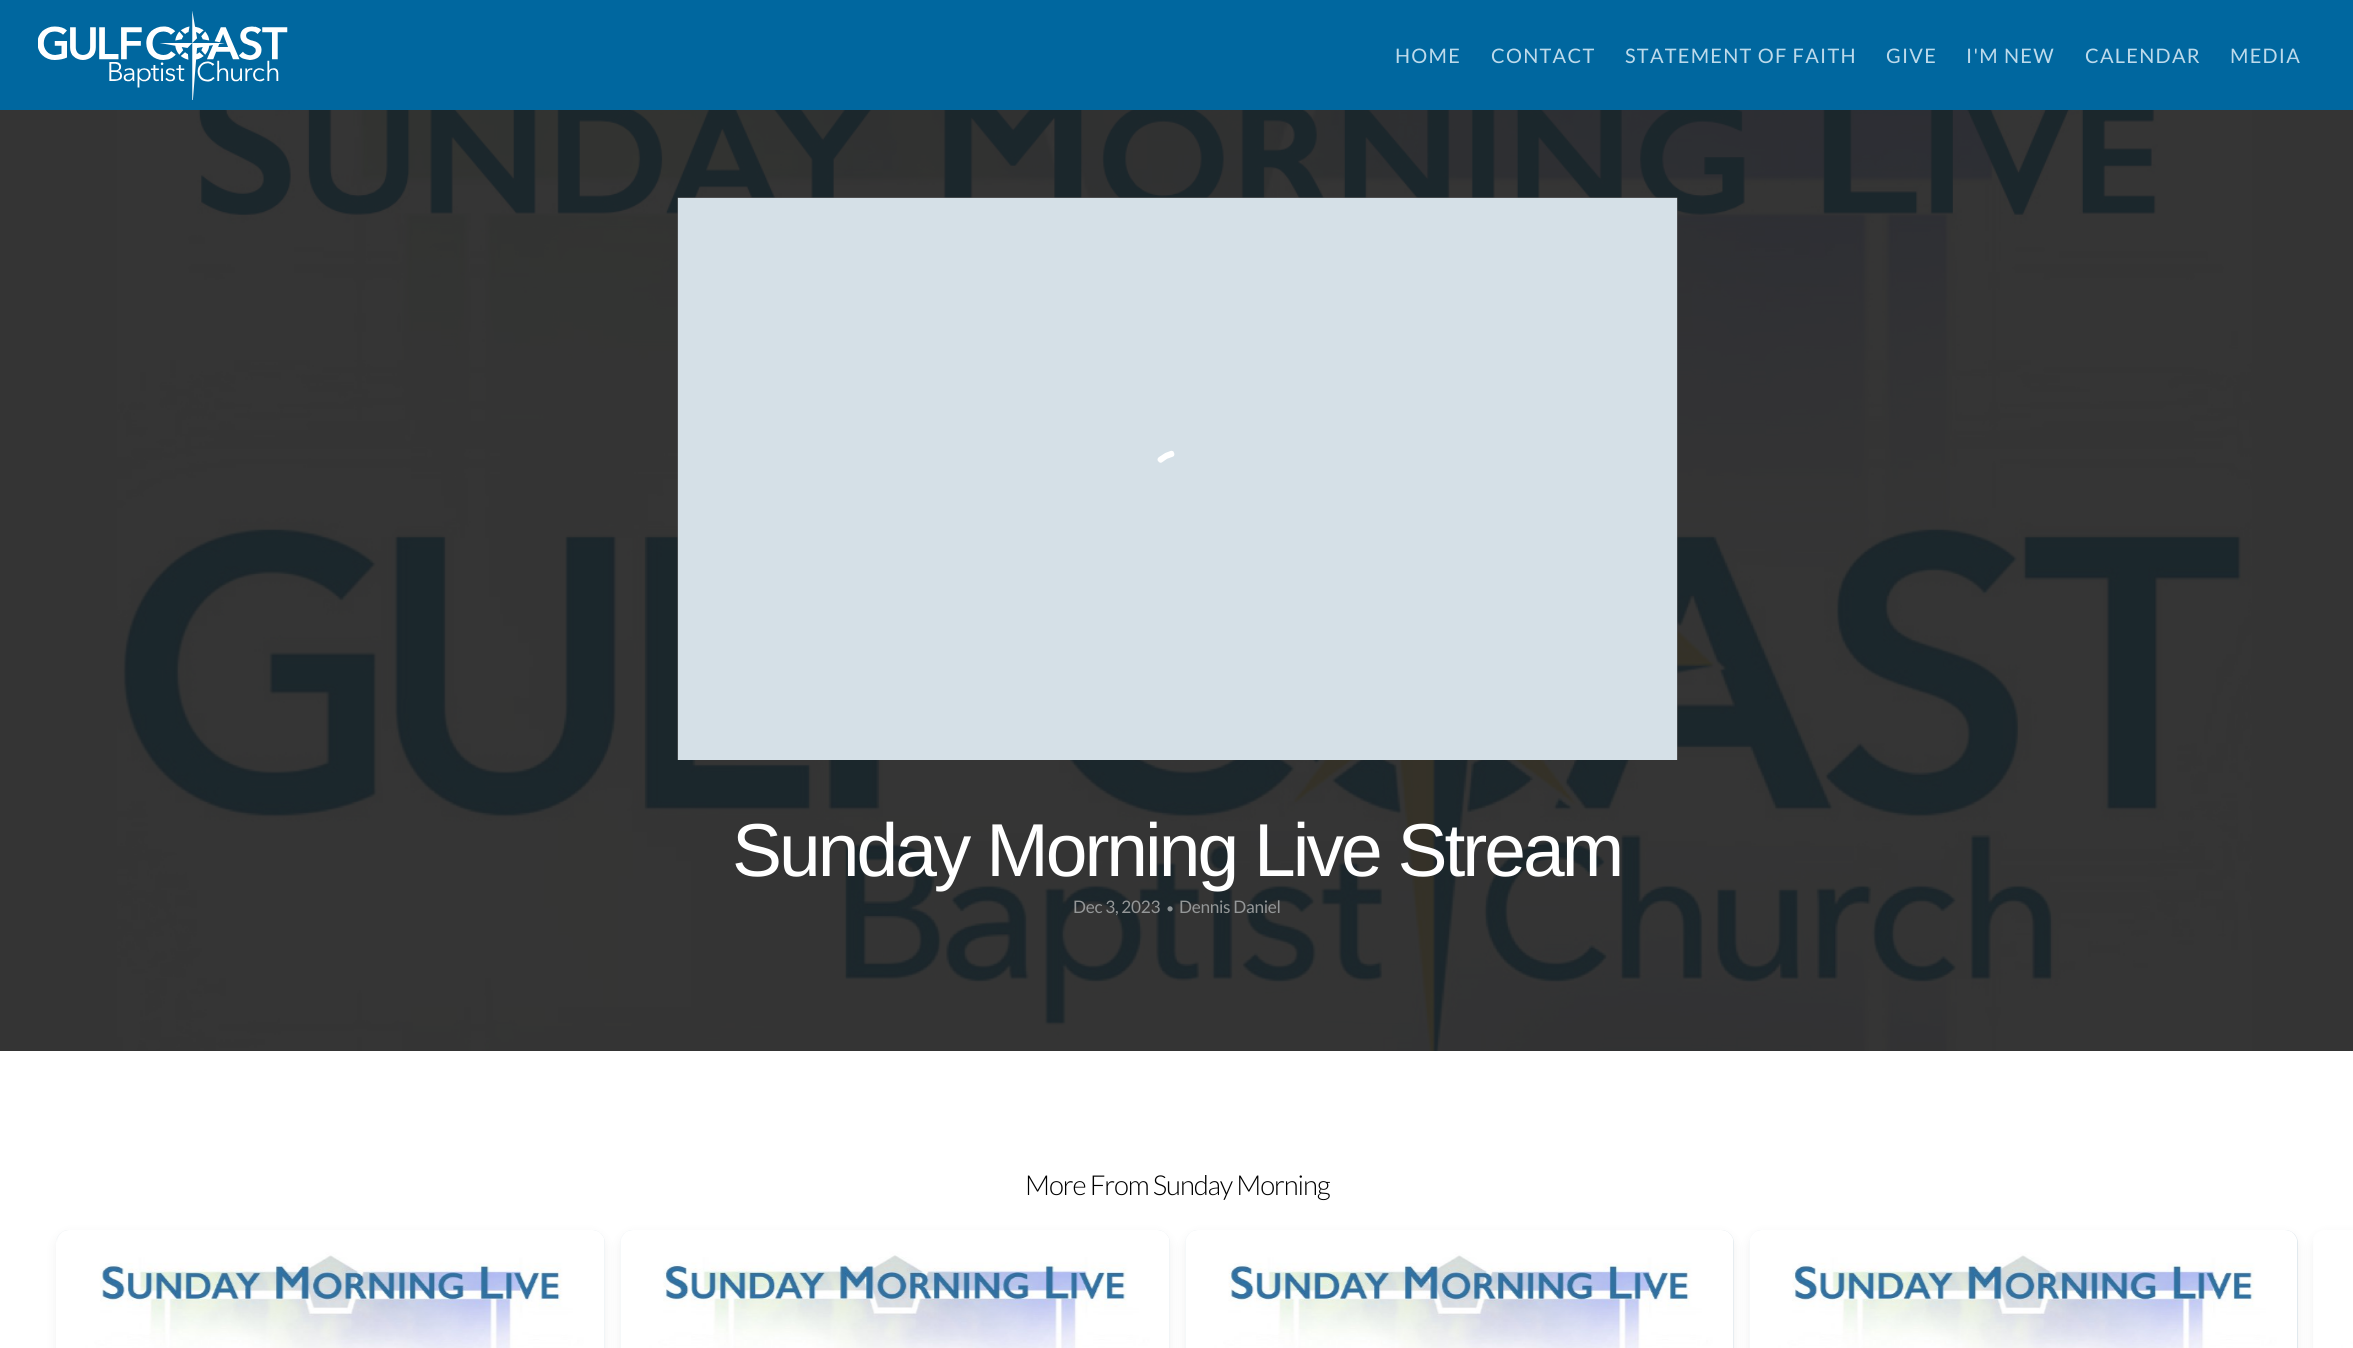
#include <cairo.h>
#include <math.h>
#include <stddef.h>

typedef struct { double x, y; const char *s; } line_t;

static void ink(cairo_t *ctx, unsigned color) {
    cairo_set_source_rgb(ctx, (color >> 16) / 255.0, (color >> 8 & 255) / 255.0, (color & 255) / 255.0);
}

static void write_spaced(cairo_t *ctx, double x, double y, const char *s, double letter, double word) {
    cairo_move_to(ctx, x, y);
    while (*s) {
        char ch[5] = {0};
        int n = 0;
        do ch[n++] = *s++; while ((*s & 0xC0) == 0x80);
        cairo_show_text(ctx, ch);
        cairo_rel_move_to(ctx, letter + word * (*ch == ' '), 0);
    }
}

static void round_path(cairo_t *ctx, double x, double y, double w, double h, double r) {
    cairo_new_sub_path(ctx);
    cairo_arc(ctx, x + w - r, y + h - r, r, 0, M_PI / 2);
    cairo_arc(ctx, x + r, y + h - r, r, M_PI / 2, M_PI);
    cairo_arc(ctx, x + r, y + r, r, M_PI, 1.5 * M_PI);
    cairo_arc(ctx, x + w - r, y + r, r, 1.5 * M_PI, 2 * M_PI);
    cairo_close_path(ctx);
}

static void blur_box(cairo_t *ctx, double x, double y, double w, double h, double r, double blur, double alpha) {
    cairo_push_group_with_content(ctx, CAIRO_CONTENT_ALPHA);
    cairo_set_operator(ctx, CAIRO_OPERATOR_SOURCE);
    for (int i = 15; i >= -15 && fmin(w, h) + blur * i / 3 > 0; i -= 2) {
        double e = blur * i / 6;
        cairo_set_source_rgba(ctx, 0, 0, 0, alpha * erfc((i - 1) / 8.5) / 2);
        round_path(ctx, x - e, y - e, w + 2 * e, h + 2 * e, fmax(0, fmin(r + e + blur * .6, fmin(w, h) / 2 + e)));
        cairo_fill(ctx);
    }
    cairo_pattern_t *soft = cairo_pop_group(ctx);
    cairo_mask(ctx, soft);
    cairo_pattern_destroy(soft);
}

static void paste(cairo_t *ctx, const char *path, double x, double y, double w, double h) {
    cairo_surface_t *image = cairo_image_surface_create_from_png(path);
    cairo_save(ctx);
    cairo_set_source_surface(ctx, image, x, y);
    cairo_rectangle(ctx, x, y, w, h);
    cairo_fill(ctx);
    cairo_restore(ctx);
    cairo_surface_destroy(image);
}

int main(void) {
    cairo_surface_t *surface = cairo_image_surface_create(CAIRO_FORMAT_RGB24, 2353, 1348);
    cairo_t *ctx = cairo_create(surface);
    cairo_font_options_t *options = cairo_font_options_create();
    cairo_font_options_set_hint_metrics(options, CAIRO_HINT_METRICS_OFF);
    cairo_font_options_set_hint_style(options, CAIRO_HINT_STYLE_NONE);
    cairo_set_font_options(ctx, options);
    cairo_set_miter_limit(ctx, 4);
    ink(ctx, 0x343434);
    cairo_paint(ctx);
    ink(ctx, 0x00679F);
    cairo_rectangle(ctx, 0, 0, 2353, 110);
    cairo_fill(ctx);
    paste(ctx, "media/1.png", 38, 11, 250, 89);
    cairo_select_font_face(ctx, "Lato", CAIRO_FONT_SLANT_NORMAL, CAIRO_FONT_WEIGHT_NORMAL);
    cairo_set_font_size(ctx, 20);
    ink(ctx, 0xBDDAEB);
    {
        static const line_t items[] = {
            {1395, 63, "HOME"},
            {1491, 63, "CONTACT"},
            {1625, 63, "STATEMENT OF FAITH"},
            {1886, 63, "GIVE"},
            {1966, 63, "I'M NEW"},
            {2085, 63, "CALENDAR"},
            {2230, 63, "MEDIA"},
        };
        for (size_t i = 0; i < sizeof items / sizeof *items; i++) {
            write_spaced(ctx, items[i].x, items[i].y, items[i].s, 1.25, 0);
        }
    }
    paste(ctx, "media/2.png", 117, 110, 2135, 941);
    paste(ctx, "media/3.png", 677, 197, 1001, 563);
    cairo_select_font_face(ctx, "Liberation Sans", CAIRO_FONT_SLANT_NORMAL, CAIRO_FONT_WEIGHT_NORMAL);
    cairo_set_font_size(ctx, 75);
    ink(ctx, 0xFFFFFF);
    write_spaced(ctx, 732, 876, "Sunday Morning Live Stream", -3, 0);
    cairo_select_font_face(ctx, "Lato", CAIRO_FONT_SLANT_NORMAL, CAIRO_FONT_WEIGHT_NORMAL);
    cairo_set_font_size(ctx, 17.25);
    ink(ctx, 0x949798);
    write_spaced(ctx, 1073, 913, "Dec 3, 2023", -0.3, 0);
    cairo_set_font_size(ctx, 14);
    ink(ctx, 0x8D9395);
    write_spaced(ctx, 1166, 913, "•", -0.3, 0);
    cairo_set_font_size(ctx, 17.25);
    ink(ctx, 0x949798);
    write_spaced(ctx, 1179, 913, "Dennis Daniel", -0.3, 0);
    ink(ctx, 0xFFFFFF);
    cairo_rectangle(ctx, 0, 1051, 2353, 297);
    cairo_fill(ctx);
    cairo_select_font_face(ctx, "Lato Light", CAIRO_FONT_SLANT_NORMAL, CAIRO_FONT_WEIGHT_NORMAL);
    cairo_set_font_size(ctx, 27.5);
    ink(ctx, 0x000000);
    write_spaced(ctx, 1025, 1195, "More From Sunday Morning", -1.1, 0);
    ink(ctx, 0x000000);
    blur_box(ctx, 56, 1234, 549, 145, 13, 6, 0.06);
    ink(ctx, 0xD5E0E7);
    round_path(ctx, 56, 1230, 549, 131, 13);
    cairo_fill(ctx);
    paste(ctx, "media/4.png", 56, 1230, 549, 118);
    ink(ctx, 0x000000);
    blur_box(ctx, 620, 1234, 550, 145, 13, 6, 0.06);
    ink(ctx, 0xD5E0E7);
    round_path(ctx, 620, 1230, 550, 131, 13);
    cairo_fill(ctx);
    paste(ctx, "media/5.png", 620, 1230, 550, 118);
    ink(ctx, 0x000000);
    blur_box(ctx, 1185, 1234, 549, 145, 13, 6, 0.06);
    ink(ctx, 0xD5E0E7);
    round_path(ctx, 1185, 1230, 549, 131, 13);
    cairo_fill(ctx);
    paste(ctx, "media/6.png", 1185, 1230, 549, 118);
    ink(ctx, 0x000000);
    blur_box(ctx, 1749, 1234, 549, 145, 13, 6, 0.06);
    ink(ctx, 0xD5E0E7);
    round_path(ctx, 1749, 1230, 549, 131, 13);
    cairo_fill(ctx);
    paste(ctx, "media/7.png", 1749, 1230, 549, 118);
    ink(ctx, 0x000000);
    blur_box(ctx, 2313, 1234, 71, 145, 13, 6, 0.06);
    paste(ctx, "media/8.png", 2313, 1230, 40, 118);
    cairo_surface_write_to_png(surface, "image.png");
    cairo_font_options_destroy(options);
    cairo_destroy(ctx);
    cairo_surface_destroy(surface);
    return 0;
}
